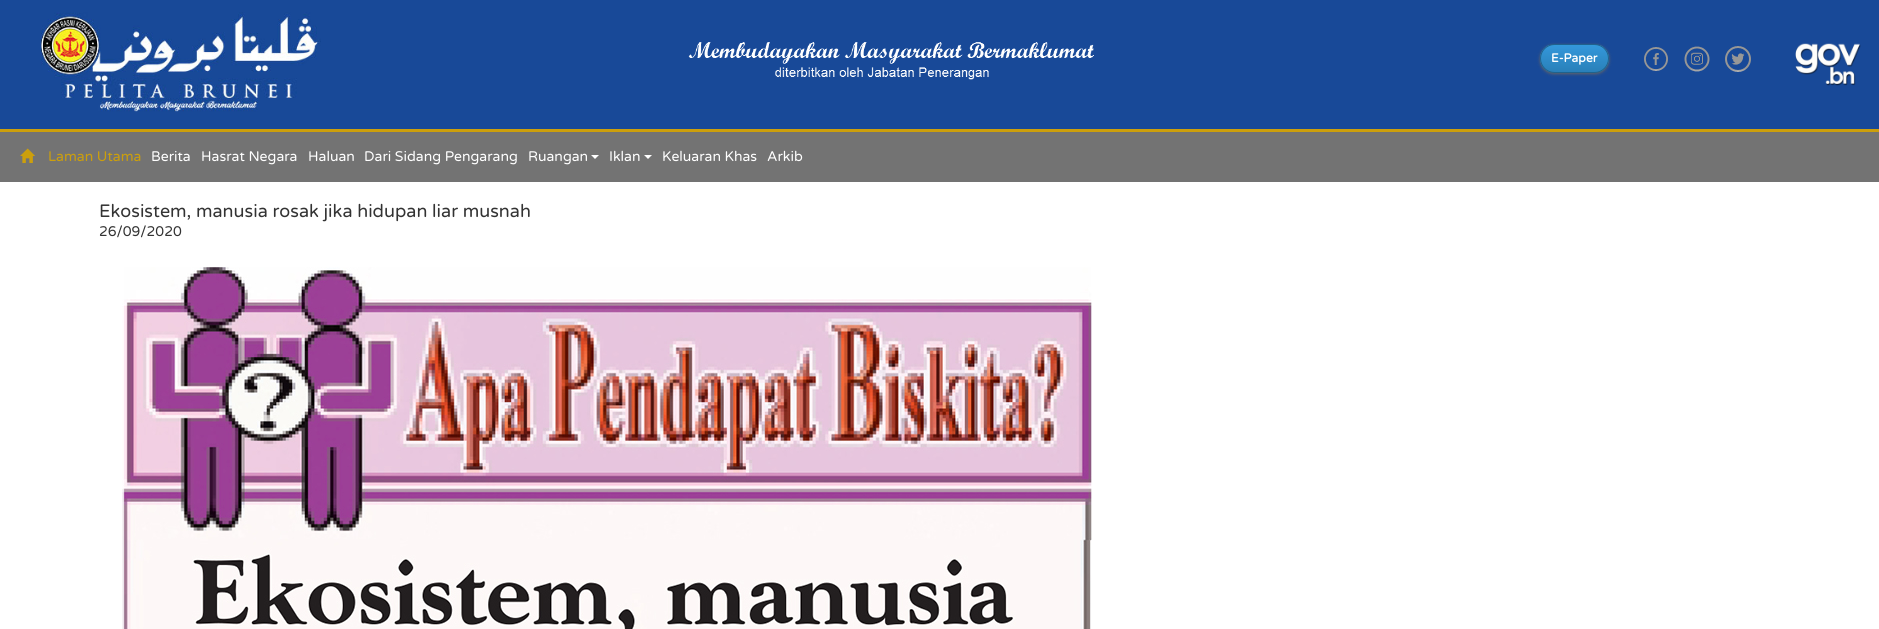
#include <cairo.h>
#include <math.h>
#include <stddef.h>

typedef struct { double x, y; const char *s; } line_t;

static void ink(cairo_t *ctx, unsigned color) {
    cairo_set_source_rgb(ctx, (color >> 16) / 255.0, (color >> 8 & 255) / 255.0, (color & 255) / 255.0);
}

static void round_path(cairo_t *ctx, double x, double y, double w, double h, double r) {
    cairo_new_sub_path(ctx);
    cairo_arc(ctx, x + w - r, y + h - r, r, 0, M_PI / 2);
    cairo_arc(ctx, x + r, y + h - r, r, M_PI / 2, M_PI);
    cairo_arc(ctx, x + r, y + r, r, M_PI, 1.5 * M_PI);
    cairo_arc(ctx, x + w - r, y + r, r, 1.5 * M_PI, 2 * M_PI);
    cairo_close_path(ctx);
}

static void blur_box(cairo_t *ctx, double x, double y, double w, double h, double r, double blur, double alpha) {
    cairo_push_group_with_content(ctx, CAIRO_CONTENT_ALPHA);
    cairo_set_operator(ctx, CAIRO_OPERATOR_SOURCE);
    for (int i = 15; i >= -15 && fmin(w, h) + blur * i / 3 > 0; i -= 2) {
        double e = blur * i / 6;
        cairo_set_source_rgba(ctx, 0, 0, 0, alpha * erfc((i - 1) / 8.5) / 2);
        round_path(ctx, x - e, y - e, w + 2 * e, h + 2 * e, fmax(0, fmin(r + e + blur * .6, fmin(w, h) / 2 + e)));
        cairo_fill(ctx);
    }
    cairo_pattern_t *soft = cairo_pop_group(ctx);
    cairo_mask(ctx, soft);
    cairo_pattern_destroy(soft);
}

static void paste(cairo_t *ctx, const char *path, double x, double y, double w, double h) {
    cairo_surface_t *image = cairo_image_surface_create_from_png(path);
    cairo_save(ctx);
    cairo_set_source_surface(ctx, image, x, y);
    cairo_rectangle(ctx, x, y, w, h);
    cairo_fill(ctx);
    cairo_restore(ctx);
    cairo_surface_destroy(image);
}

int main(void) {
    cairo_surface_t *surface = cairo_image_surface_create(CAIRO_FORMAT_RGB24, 1879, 629);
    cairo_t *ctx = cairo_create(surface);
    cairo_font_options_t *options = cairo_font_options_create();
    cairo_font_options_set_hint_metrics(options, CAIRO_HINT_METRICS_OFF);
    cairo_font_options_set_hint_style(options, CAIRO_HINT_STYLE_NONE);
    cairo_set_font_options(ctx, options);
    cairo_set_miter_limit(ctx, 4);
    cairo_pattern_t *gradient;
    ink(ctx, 0xFFFFFF);
    cairo_paint(ctx);
    ink(ctx, 0x184998);
    cairo_rectangle(ctx, 0, 0, 1879, 129);
    cairo_fill(ctx);
    ink(ctx, 0xCC9F0C);
    cairo_rectangle(ctx, 0, 129, 1879, 3);
    cairo_fill(ctx);
    paste(ctx, "media/1.png", 41, 12, 280, 100);
    paste(ctx, "media/2.png", 688, 42, 406, 38);
    ink(ctx, 0x666666);
    blur_box(ctx, 1540, 45, 69, 29, 14.5, 1.5, 1);
    cairo_save(ctx);
    round_path(ctx, 1540, 44, 69, 29, 14.5);
    cairo_clip(ctx);
    gradient = cairo_pattern_create_linear(1575, 45, 1575, 72);
    cairo_pattern_add_color_stop_rgba(gradient, 0, 0.204, 0.596, 0.859, 1);
    cairo_pattern_add_color_stop_rgba(gradient, 1, 0.161, 0.502, 0.725, 1);
    cairo_set_source(ctx, gradient);
    cairo_pattern_destroy(gradient);
    cairo_rectangle(ctx, 1540, 45, 69, 27);
    cairo_fill(ctx);
    cairo_restore(ctx);
    round_path(ctx, 1540.5, 44.5, 68, 28, 14);
    ink(ctx, 0x1F628D);
    cairo_set_line_width(ctx, 1);
    cairo_stroke(ctx);
    cairo_select_font_face(ctx, "Varela Round", CAIRO_FONT_SLANT_NORMAL, CAIRO_FONT_WEIGHT_BOLD);
    cairo_set_font_size(ctx, 12);
    ink(ctx, 0xFFFFFF);
    cairo_move_to(ctx, 1551, 62);
    cairo_show_text(ctx, "E-Paper");
    paste(ctx, "media/3.png", 1644, 47, 24, 24);
    paste(ctx, "media/4.png", 1684, 46, 26, 26);
    paste(ctx, "media/5.png", 1725, 46, 26, 26);
    paste(ctx, "media/6.png", 1795, 43, 66, 43);
    ink(ctx, 0x737373);
    cairo_rectangle(ctx, 0, 132, 1879, 50);
    cairo_fill(ctx);
    paste(ctx, "media/7.png", 20, 148, 15, 15);
    cairo_select_font_face(ctx, "Varela Round", CAIRO_FONT_SLANT_NORMAL, CAIRO_FONT_WEIGHT_NORMAL);
    cairo_set_font_size(ctx, 14);
    ink(ctx, 0xCC9F0C);
    cairo_move_to(ctx, 48, 161);
    cairo_show_text(ctx, "Laman Utama");
    ink(ctx, 0xFFFFFF);
    {
        static const line_t items[] = {
            {151, 161, "Berita"},
            {201, 161, "Hasrat Negara"},
            {308, 161, "Haluan"},
            {364, 161, "Dari Sidang Pengarang"},
            {528, 161, "Ruangan"},
        };
        for (size_t i = 0; i < sizeof items / sizeof *items; i++) {
            cairo_move_to(ctx, items[i].x, items[i].y);
            cairo_show_text(ctx, items[i].s);
        }
    }
    cairo_new_path(ctx);
    cairo_move_to(ctx, 591, 155);
    cairo_line_to(ctx, 599, 155);
    cairo_line_to(ctx, 595, 159);
    cairo_close_path(ctx);
    cairo_fill(ctx);
    cairo_move_to(ctx, 609, 161);
    cairo_show_text(ctx, "Iklan");
    cairo_new_path(ctx);
    cairo_move_to(ctx, 644, 155);
    cairo_line_to(ctx, 652, 155);
    cairo_line_to(ctx, 648, 159);
    cairo_close_path(ctx);
    cairo_fill(ctx);
    cairo_move_to(ctx, 662, 161);
    cairo_show_text(ctx, "Keluaran Khas");
    cairo_move_to(ctx, 767, 161);
    cairo_show_text(ctx, "Arkib");
    cairo_set_font_size(ctx, 18);
    ink(ctx, 0x333333);
    cairo_move_to(ctx, 99, 217);
    cairo_show_text(ctx, "Ekosistem, manusia rosak jika hidupan liar musnah");
    cairo_set_font_size(ctx, 14);
    cairo_move_to(ctx, 99, 236);
    cairo_show_text(ctx, "26/09/2020");
    paste(ctx, "media/8.png", 122, 267, 970, 362);
    cairo_surface_write_to_png(surface, "image.png");
    cairo_font_options_destroy(options);
    cairo_destroy(ctx);
    cairo_surface_destroy(surface);
    return 0;
}
